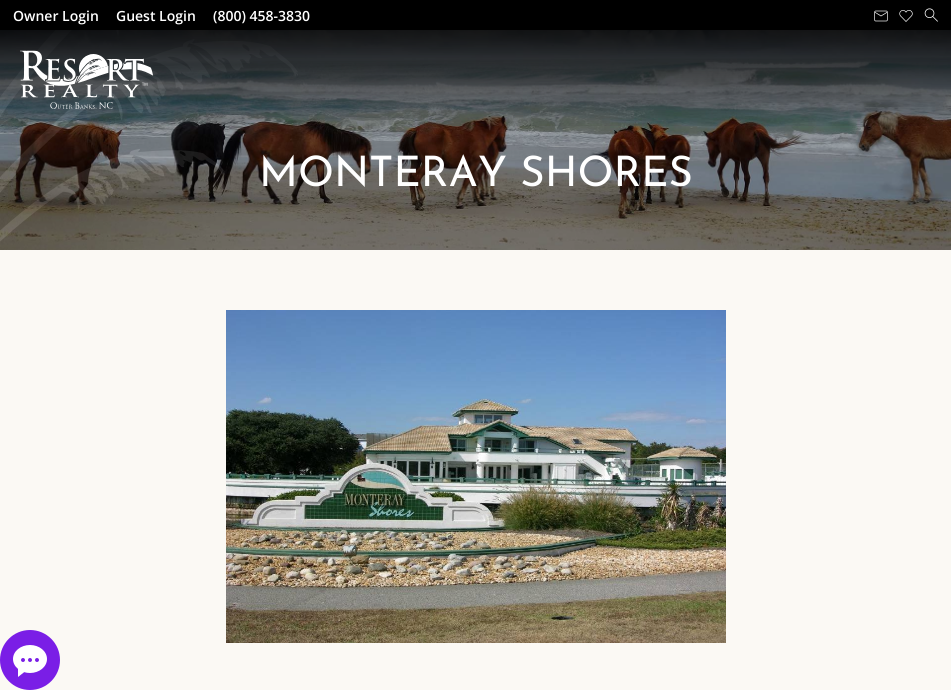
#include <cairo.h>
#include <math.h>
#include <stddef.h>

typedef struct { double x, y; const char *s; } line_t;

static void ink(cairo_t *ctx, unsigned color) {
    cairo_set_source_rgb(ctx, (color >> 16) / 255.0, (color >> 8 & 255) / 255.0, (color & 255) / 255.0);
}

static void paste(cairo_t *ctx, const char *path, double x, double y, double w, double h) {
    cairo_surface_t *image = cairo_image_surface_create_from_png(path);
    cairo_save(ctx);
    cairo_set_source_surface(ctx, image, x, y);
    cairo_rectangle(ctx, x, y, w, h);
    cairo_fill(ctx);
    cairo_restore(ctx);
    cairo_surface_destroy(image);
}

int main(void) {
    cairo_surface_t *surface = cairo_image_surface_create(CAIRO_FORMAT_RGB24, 951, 690);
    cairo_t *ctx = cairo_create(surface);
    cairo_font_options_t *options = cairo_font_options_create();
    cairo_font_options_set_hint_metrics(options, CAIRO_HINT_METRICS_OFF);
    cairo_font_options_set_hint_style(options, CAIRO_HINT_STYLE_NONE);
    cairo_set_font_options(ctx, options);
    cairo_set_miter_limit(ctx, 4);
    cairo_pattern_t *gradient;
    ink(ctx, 0xFBF9F4);
    cairo_paint(ctx);
    ink(ctx, 0x000000);
    cairo_rectangle(ctx, 0, 0, 951, 250);
    cairo_fill(ctx);
    paste(ctx, "media/5.png", 0, 30, 298, 212);
    paste(ctx, "media/6.png", 0, 30, 951, 220);
    gradient = cairo_pattern_create_linear(476, 130, 476, 0);
    cairo_pattern_add_color_stop_rgba(gradient, 0, 0, 0, 0, 0);
    cairo_pattern_add_color_stop_rgba(gradient, 0.97, 0, 0, 0, 0.75);
    cairo_set_source(ctx, gradient);
    cairo_pattern_destroy(gradient);
    cairo_rectangle(ctx, 0, 30, 951, 96);
    cairo_fill(ctx);
    cairo_rectangle(ctx, 0, 30, 951, 96);
    cairo_fill(ctx);
    cairo_select_font_face(ctx, "Open Sans SemiBold", CAIRO_FONT_SLANT_NORMAL, CAIRO_FONT_WEIGHT_NORMAL);
    cairo_set_font_size(ctx, 14);
    ink(ctx, 0xFFFFFF);
    {
        static const line_t items[] = {
            {13, 21, "Owner Login"},
            {116, 21, "Guest Login"},
            {213, 21, "(800) 458-3830"},
        };
        for (size_t i = 0; i < sizeof items / sizeof *items; i++) {
            cairo_move_to(ctx, items[i].x, items[i].y);
            cairo_show_text(ctx, items[i].s);
        }
    }
    paste(ctx, "media/1.png", 874, 10, 14, 12);
    paste(ctx, "media/2.png", 899, 10, 14, 12);
    paste(ctx, "media/3.png", 924, 8, 14, 14);
    paste(ctx, "media/4.png", 20, 50, 133, 59);
    cairo_select_font_face(ctx, "Josefin Sans", CAIRO_FONT_SLANT_NORMAL, CAIRO_FONT_WEIGHT_NORMAL);
    cairo_set_font_size(ctx, 42);
    cairo_move_to(ctx, 259, 186);
    cairo_show_text(ctx, "MONTERAY SHORES");
    paste(ctx, "media/7.png", 226, 310, 500, 333);
    paste(ctx, "media/8.png", 0, 630, 60, 60);
    cairo_surface_write_to_png(surface, "image.png");
    cairo_font_options_destroy(options);
    cairo_destroy(ctx);
    cairo_surface_destroy(surface);
    return 0;
}
